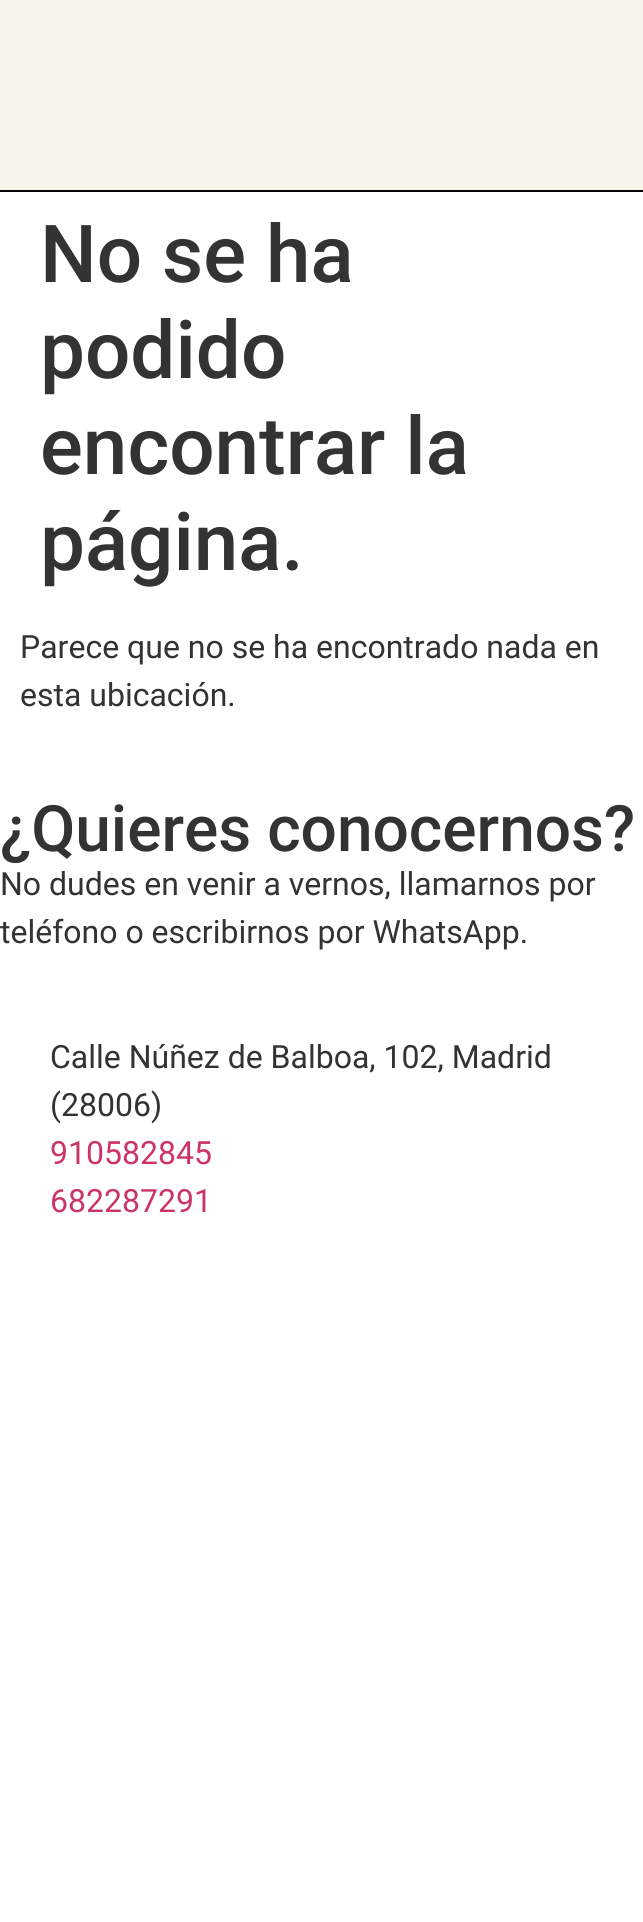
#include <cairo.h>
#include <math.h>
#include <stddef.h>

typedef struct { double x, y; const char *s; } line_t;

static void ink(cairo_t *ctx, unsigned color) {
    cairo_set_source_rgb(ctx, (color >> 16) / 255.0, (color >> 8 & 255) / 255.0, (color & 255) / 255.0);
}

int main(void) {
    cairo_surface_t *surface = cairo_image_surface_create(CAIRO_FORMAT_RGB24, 643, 1922);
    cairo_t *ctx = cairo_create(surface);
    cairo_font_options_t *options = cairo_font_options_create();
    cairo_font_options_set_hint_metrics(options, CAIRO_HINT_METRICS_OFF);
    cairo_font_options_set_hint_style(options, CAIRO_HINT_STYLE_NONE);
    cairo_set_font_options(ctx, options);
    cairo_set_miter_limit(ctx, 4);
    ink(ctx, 0xFFFFFF);
    cairo_paint(ctx);
    ink(ctx, 0xF7F4EB);
    cairo_rectangle(ctx, 0, 0, 643, 190);
    cairo_fill(ctx);
    ink(ctx, 0x000000);
    cairo_rectangle(ctx, 0, 190, 643, 2);
    cairo_fill(ctx);
    cairo_select_font_face(ctx, "Roboto Medium", CAIRO_FONT_SLANT_NORMAL, CAIRO_FONT_WEIGHT_NORMAL);
    cairo_set_font_size(ctx, 80);
    ink(ctx, 0x333333);
    {
        static const line_t items[] = {
            {40, 282, "No se ha"},
            {40, 378, "podido"},
            {40, 474, "encontrar la"},
            {40, 570, "página."},
        };
        for (size_t i = 0; i < sizeof items / sizeof *items; i++) {
            cairo_move_to(ctx, items[i].x, items[i].y);
            cairo_show_text(ctx, items[i].s);
        }
    }
    cairo_select_font_face(ctx, "Roboto", CAIRO_FONT_SLANT_NORMAL, CAIRO_FONT_WEIGHT_NORMAL);
    cairo_set_font_size(ctx, 32);
    cairo_move_to(ctx, 20, 658);
    cairo_show_text(ctx, "Parece que no se ha encontrado nada en");
    cairo_move_to(ctx, 20, 706);
    cairo_show_text(ctx, "esta ubicación.");
    cairo_select_font_face(ctx, "Roboto Medium", CAIRO_FONT_SLANT_NORMAL, CAIRO_FONT_WEIGHT_NORMAL);
    cairo_set_font_size(ctx, 64);
    cairo_move_to(ctx, 0, 851);
    cairo_show_text(ctx, "¿Quieres conocernos?");
    cairo_select_font_face(ctx, "Roboto", CAIRO_FONT_SLANT_NORMAL, CAIRO_FONT_WEIGHT_NORMAL);
    cairo_set_font_size(ctx, 32);
    {
        static const line_t items[] = {
            {0, 895, "No dudes en venir a vernos, llamarnos por"},
            {0, 943, "teléfono o escribirnos por WhatsApp."},
            {50, 1068, "Calle Núñez de Balboa, 102, Madrid"},
            {50, 1116, "(28006)"},
        };
        for (size_t i = 0; i < sizeof items / sizeof *items; i++) {
            cairo_move_to(ctx, items[i].x, items[i].y);
            cairo_show_text(ctx, items[i].s);
        }
    }
    ink(ctx, 0xCC3366);
    cairo_move_to(ctx, 50, 1164);
    cairo_show_text(ctx, "910582845");
    cairo_move_to(ctx, 50, 1212);
    cairo_show_text(ctx, "682287291");
    cairo_surface_write_to_png(surface, "image.png");
    cairo_font_options_destroy(options);
    cairo_destroy(ctx);
    cairo_surface_destroy(surface);
    return 0;
}
